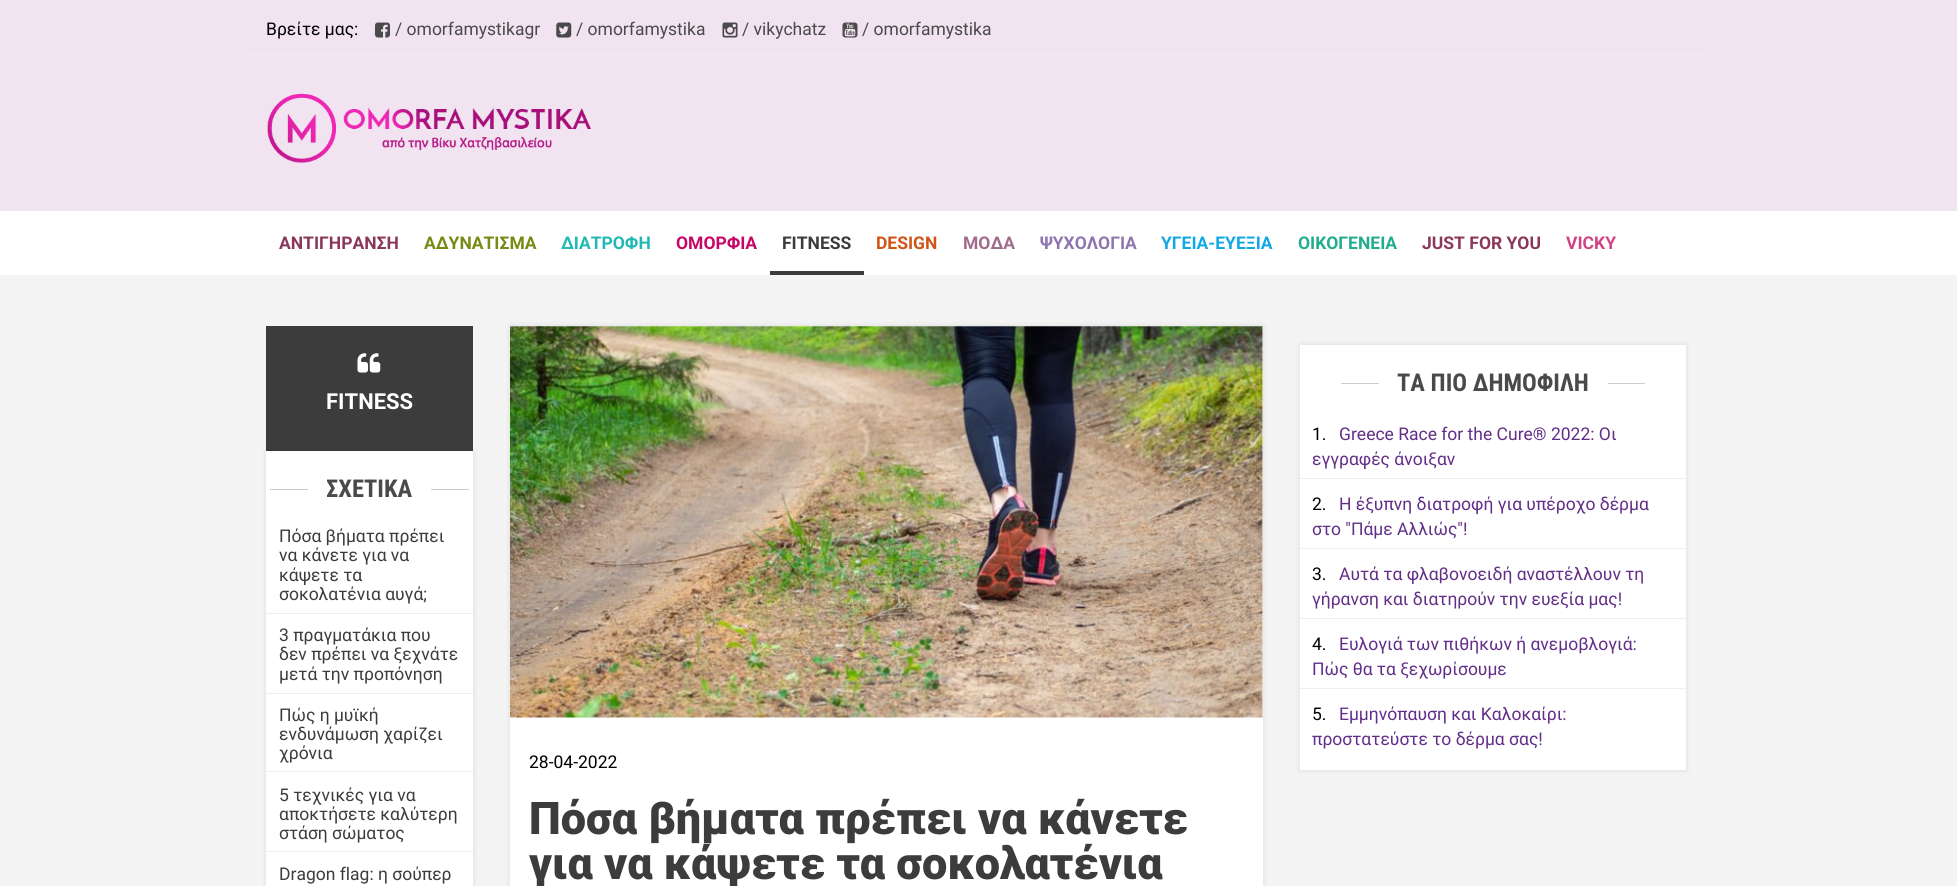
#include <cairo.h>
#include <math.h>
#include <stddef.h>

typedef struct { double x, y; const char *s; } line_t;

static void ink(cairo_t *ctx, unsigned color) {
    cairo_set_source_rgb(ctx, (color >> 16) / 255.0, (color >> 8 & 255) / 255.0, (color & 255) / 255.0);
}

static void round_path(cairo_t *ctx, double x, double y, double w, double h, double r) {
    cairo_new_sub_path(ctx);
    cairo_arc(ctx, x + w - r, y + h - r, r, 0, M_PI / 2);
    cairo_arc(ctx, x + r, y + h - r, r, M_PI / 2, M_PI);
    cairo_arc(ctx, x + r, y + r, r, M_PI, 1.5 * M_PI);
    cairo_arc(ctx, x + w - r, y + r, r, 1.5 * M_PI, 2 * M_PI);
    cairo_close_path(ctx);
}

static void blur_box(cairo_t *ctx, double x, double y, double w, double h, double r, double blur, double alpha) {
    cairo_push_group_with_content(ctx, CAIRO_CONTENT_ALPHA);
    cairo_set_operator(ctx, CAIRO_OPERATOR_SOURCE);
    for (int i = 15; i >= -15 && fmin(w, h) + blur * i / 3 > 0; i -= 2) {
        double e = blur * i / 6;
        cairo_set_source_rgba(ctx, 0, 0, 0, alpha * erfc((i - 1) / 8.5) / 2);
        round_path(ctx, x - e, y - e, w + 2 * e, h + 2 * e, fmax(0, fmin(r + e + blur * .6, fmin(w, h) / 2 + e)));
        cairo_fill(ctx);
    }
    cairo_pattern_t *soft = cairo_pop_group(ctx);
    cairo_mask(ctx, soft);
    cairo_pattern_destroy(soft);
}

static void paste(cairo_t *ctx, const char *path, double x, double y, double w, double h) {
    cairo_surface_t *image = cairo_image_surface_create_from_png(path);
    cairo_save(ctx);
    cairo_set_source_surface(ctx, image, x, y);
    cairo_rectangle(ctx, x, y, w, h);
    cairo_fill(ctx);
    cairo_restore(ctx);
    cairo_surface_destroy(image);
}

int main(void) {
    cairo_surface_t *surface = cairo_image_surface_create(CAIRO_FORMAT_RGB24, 1957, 886);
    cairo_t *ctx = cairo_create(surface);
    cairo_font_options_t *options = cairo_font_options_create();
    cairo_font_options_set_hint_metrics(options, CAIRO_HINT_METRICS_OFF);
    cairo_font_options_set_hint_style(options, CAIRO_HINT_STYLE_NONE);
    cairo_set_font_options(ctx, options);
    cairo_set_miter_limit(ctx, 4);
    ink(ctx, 0xF4F4F4);
    cairo_paint(ctx);
    ink(ctx, 0xF2E3F0);
    cairo_rectangle(ctx, 0, 0, 1957, 211);
    cairo_fill(ctx);
    ink(ctx, 0xF5E9F3);
    cairo_rectangle(ctx, 248, 54, 1462, 1);
    cairo_fill(ctx);
    cairo_select_font_face(ctx, "Roboto", CAIRO_FONT_SLANT_NORMAL, CAIRO_FONT_WEIGHT_NORMAL);
    cairo_set_font_size(ctx, 17.5);
    ink(ctx, 0x000000);
    cairo_move_to(ctx, 266, 35);
    cairo_show_text(ctx, "Βρείτε μας:");
    paste(ctx, "media/1.png", 375, 22, 15, 16);
    ink(ctx, 0x4A4A4A);
    cairo_move_to(ctx, 395, 35);
    cairo_show_text(ctx, "/ omorfamystikagr");
    paste(ctx, "media/2.png", 556, 22, 16, 16);
    cairo_move_to(ctx, 576, 35);
    cairo_show_text(ctx, "/ omorfamystika");
    paste(ctx, "media/3.png", 722, 22, 16, 16);
    cairo_move_to(ctx, 742, 35);
    cairo_show_text(ctx, "/ vikychatz");
    paste(ctx, "media/4.png", 842, 22, 16, 16);
    cairo_move_to(ctx, 862, 35);
    cairo_show_text(ctx, "/ omorfamystika");
    paste(ctx, "media/5.png", 267, 93, 324, 70);
    ink(ctx, 0xFFFFFF);
    cairo_rectangle(ctx, 0, 211, 1957, 64);
    cairo_fill(ctx);
    cairo_select_font_face(ctx, "Roboto", CAIRO_FONT_SLANT_NORMAL, CAIRO_FONT_WEIGHT_BOLD);
    ink(ctx, 0x8A375A);
    cairo_move_to(ctx, 279, 249);
    cairo_show_text(ctx, "ΑΝΤΙΓΗΡΑΝΣΗ");
    ink(ctx, 0x788A13);
    cairo_move_to(ctx, 424, 249);
    cairo_show_text(ctx, "ΑΔΥΝΑΤΙΣΜΑ");
    ink(ctx, 0x21B9B4);
    cairo_move_to(ctx, 561, 249);
    cairo_show_text(ctx, "ΔΙΑΤΡΟΦΗ");
    ink(ctx, 0xC70667);
    cairo_move_to(ctx, 676, 249);
    cairo_show_text(ctx, "ΟΜΟΡΦΙΑ");
    ink(ctx, 0x3D3C3C);
    cairo_rectangle(ctx, 770, 271, 94, 4);
    cairo_fill(ctx);
    cairo_move_to(ctx, 782, 249);
    cairo_show_text(ctx, "FITNESS");
    ink(ctx, 0xD15417);
    cairo_move_to(ctx, 876, 249);
    cairo_show_text(ctx, "DESIGN");
    ink(ctx, 0xA16C8A);
    cairo_move_to(ctx, 963, 249);
    cairo_show_text(ctx, "ΜΟΔΑ");
    ink(ctx, 0x8C76AE);
    cairo_move_to(ctx, 1040, 249);
    cairo_show_text(ctx, "ΨΥΧΟΛΟΓΙΑ");
    ink(ctx, 0x11A8E5);
    cairo_move_to(ctx, 1161, 249);
    cairo_show_text(ctx, "ΥΓΕΙΑ-ΕΥΕΞΙΑ");
    ink(ctx, 0x21AD8D);
    cairo_move_to(ctx, 1298, 249);
    cairo_show_text(ctx, "ΟΙΚΟΓΕΝΕΙΑ");
    ink(ctx, 0x8A375A);
    cairo_move_to(ctx, 1422, 249);
    cairo_show_text(ctx, "JUST FOR YOU");
    ink(ctx, 0xD14285);
    cairo_move_to(ctx, 1566, 249);
    cairo_show_text(ctx, "VICKY");
    ink(ctx, 0x3D3C3C);
    cairo_rectangle(ctx, 266, 326, 207, 125);
    cairo_fill(ctx);
    paste(ctx, "media/6.png", 357, 353, 24, 20);
    cairo_set_font_size(ctx, 22);
    ink(ctx, 0xFFFFFF);
    cairo_move_to(ctx, 326, 409);
    cairo_show_text(ctx, "FITNESS");
    ink(ctx, 0x000000);
    blur_box(ctx, 266, 451, 207, 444, 0, 3, 0.1);
    ink(ctx, 0xFFFFFF);
    cairo_rectangle(ctx, 266, 451, 207, 435);
    cairo_fill(ctx);
    ink(ctx, 0xCCCCCC);
    cairo_rectangle(ctx, 270, 489, 38, 1);
    cairo_fill(ctx);
    cairo_select_font_face(ctx, "Roboto Condensed", CAIRO_FONT_SLANT_NORMAL, CAIRO_FONT_WEIGHT_BOLD);
    cairo_set_font_size(ctx, 24.5);
    ink(ctx, 0x4A4A4A);
    cairo_move_to(ctx, 326, 497);
    cairo_show_text(ctx, "ΣΧΕΤΙΚΑ");
    ink(ctx, 0xCCCCCC);
    cairo_rectangle(ctx, 431, 489, 38, 1);
    cairo_fill(ctx);
    ink(ctx, 0xEFEFEF);
    cairo_rectangle(ctx, 266, 613, 207, 1);
    cairo_fill(ctx);
    cairo_select_font_face(ctx, "Roboto", CAIRO_FONT_SLANT_NORMAL, CAIRO_FONT_WEIGHT_NORMAL);
    cairo_set_font_size(ctx, 17.5);
    ink(ctx, 0x3D3C3C);
    {
        static const line_t items[] = {
            {279, 542, "Πόσα βήματα πρέπει"},
            {279, 561, "να κάνετε για να"},
            {279, 581, "κάψετε τα"},
            {279, 600, "σοκολατένια αυγά;"},
        };
        for (size_t i = 0; i < sizeof items / sizeof *items; i++) {
            cairo_move_to(ctx, items[i].x, items[i].y);
            cairo_show_text(ctx, items[i].s);
        }
    }
    ink(ctx, 0xEFEFEF);
    cairo_rectangle(ctx, 266, 693, 207, 1);
    cairo_fill(ctx);
    ink(ctx, 0x3D3C3C);
    {
        static const line_t items[] = {
            {279, 641, "3 πραγματάκια που"},
            {279, 660, "δεν πρέπει να ξεχνάτε"},
            {279, 680, "μετά την προπόνηση"},
        };
        for (size_t i = 0; i < sizeof items / sizeof *items; i++) {
            cairo_move_to(ctx, items[i].x, items[i].y);
            cairo_show_text(ctx, items[i].s);
        }
    }
    ink(ctx, 0xEFEFEF);
    cairo_rectangle(ctx, 266, 771, 207, 1);
    cairo_fill(ctx);
    ink(ctx, 0x3D3C3C);
    {
        static const line_t items[] = {
            {279, 721, "Πώς η μυϊκή"},
            {279, 740, "ενδυνάμωση χαρίζει"},
            {279, 759, "χρόνια"},
        };
        for (size_t i = 0; i < sizeof items / sizeof *items; i++) {
            cairo_move_to(ctx, items[i].x, items[i].y);
            cairo_show_text(ctx, items[i].s);
        }
    }
    ink(ctx, 0xEFEFEF);
    cairo_rectangle(ctx, 266, 851, 207, 1);
    cairo_fill(ctx);
    ink(ctx, 0x3D3C3C);
    {
        static const line_t items[] = {
            {279, 801, "5 τεχνικές για να"},
            {279, 820, "αποκτήσετε καλύτερη"},
            {279, 839, "στάση σώματος"},
            {279, 880, "Dragon flag: η σούπερ"},
        };
        for (size_t i = 0; i < sizeof items / sizeof *items; i++) {
            cairo_move_to(ctx, items[i].x, items[i].y);
            cairo_show_text(ctx, items[i].s);
        }
    }
    ink(ctx, 0x000000);
    blur_box(ctx, 510, 326, 753, 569, 0, 3, 0.1);
    ink(ctx, 0xFFFFFF);
    cairo_rectangle(ctx, 510, 326, 753, 560);
    cairo_fill(ctx);
    paste(ctx, "media/7.png", 510, 326, 753, 392);
    ink(ctx, 0x000000);
    cairo_move_to(ctx, 529, 768);
    cairo_show_text(ctx, "28-04-2022");
    cairo_select_font_face(ctx, "Roboto Black", CAIRO_FONT_SLANT_NORMAL, CAIRO_FONT_WEIGHT_NORMAL);
    cairo_set_font_size(ctx, 45);
    ink(ctx, 0x3D3C3C);
    cairo_move_to(ctx, 529, 834);
    cairo_show_text(ctx, "Πόσα βήματα πρέπει να κάνετε");
    cairo_move_to(ctx, 529, 879);
    cairo_show_text(ctx, "για να κάψετε τα σοκολατένια");
    ink(ctx, 0x000000);
    blur_box(ctx, 1300, 345, 386, 425, 0, 3, 0.1);
    ink(ctx, 0xFFFFFF);
    cairo_rectangle(ctx, 1300, 345, 386, 425);
    cairo_fill(ctx);
    ink(ctx, 0xCCCCCC);
    cairo_rectangle(ctx, 1341, 383, 38, 1);
    cairo_fill(ctx);
    cairo_select_font_face(ctx, "Roboto Condensed", CAIRO_FONT_SLANT_NORMAL, CAIRO_FONT_WEIGHT_BOLD);
    cairo_set_font_size(ctx, 24.5);
    ink(ctx, 0x4A4A4A);
    cairo_move_to(ctx, 1397, 391);
    cairo_show_text(ctx, "ΤΑ ΠΙΟ ΔΗΜΟΦΙΛΗ");
    ink(ctx, 0xCCCCCC);
    cairo_rectangle(ctx, 1608, 383, 37, 1);
    cairo_fill(ctx);
    ink(ctx, 0xEFEFEF);
    cairo_rectangle(ctx, 1300, 478, 386, 1);
    cairo_fill(ctx);
    cairo_select_font_face(ctx, "Roboto", CAIRO_FONT_SLANT_NORMAL, CAIRO_FONT_WEIGHT_NORMAL);
    cairo_set_font_size(ctx, 17.5);
    ink(ctx, 0x000000);
    cairo_move_to(ctx, 1312, 440);
    cairo_show_text(ctx, "1.");
    ink(ctx, 0x622E88);
    cairo_move_to(ctx, 1339, 440);
    cairo_show_text(ctx, "Greece Race for the Cure® 2022: Οι");
    cairo_move_to(ctx, 1312, 465);
    cairo_show_text(ctx, "εγγραφές άνοιξαν");
    ink(ctx, 0xEFEFEF);
    cairo_rectangle(ctx, 1300, 548, 386, 1);
    cairo_fill(ctx);
    ink(ctx, 0x000000);
    cairo_move_to(ctx, 1312, 510);
    cairo_show_text(ctx, "2.");
    ink(ctx, 0x622E88);
    cairo_move_to(ctx, 1339, 510);
    cairo_show_text(ctx, "Η έξυπνη διατροφή για υπέροχο δέρμα");
    cairo_move_to(ctx, 1312, 535);
    cairo_show_text(ctx, "στο \"Πάμε Αλλιώς\"!");
    ink(ctx, 0xEFEFEF);
    cairo_rectangle(ctx, 1300, 618, 386, 1);
    cairo_fill(ctx);
    ink(ctx, 0x000000);
    cairo_move_to(ctx, 1312, 580);
    cairo_show_text(ctx, "3.");
    ink(ctx, 0x622E88);
    cairo_move_to(ctx, 1339, 580);
    cairo_show_text(ctx, "Αυτά τα φλαβονοειδή αναστέλλουν τη");
    cairo_move_to(ctx, 1312, 605);
    cairo_show_text(ctx, "γήρανση και διατηρούν την ευεξία μας!");
    ink(ctx, 0xEFEFEF);
    cairo_rectangle(ctx, 1300, 688, 386, 1);
    cairo_fill(ctx);
    ink(ctx, 0x000000);
    cairo_move_to(ctx, 1312, 650);
    cairo_show_text(ctx, "4.");
    ink(ctx, 0x622E88);
    cairo_move_to(ctx, 1339, 650);
    cairo_show_text(ctx, "Ευλογιά των πιθήκων ή ανεμοβλογιά:");
    cairo_move_to(ctx, 1312, 675);
    cairo_show_text(ctx, "Πώς θα τα ξεχωρίσουμε");
    ink(ctx, 0x000000);
    cairo_move_to(ctx, 1312, 720);
    cairo_show_text(ctx, "5.");
    ink(ctx, 0x622E88);
    cairo_move_to(ctx, 1339, 720);
    cairo_show_text(ctx, "Εμμηνόπαυση και Καλοκαίρι:");
    cairo_move_to(ctx, 1312, 745);
    cairo_show_text(ctx, "προστατεύστε το δέρμα σας!");
    cairo_surface_write_to_png(surface, "image.png");
    cairo_font_options_destroy(options);
    cairo_destroy(ctx);
    cairo_surface_destroy(surface);
    return 0;
}
